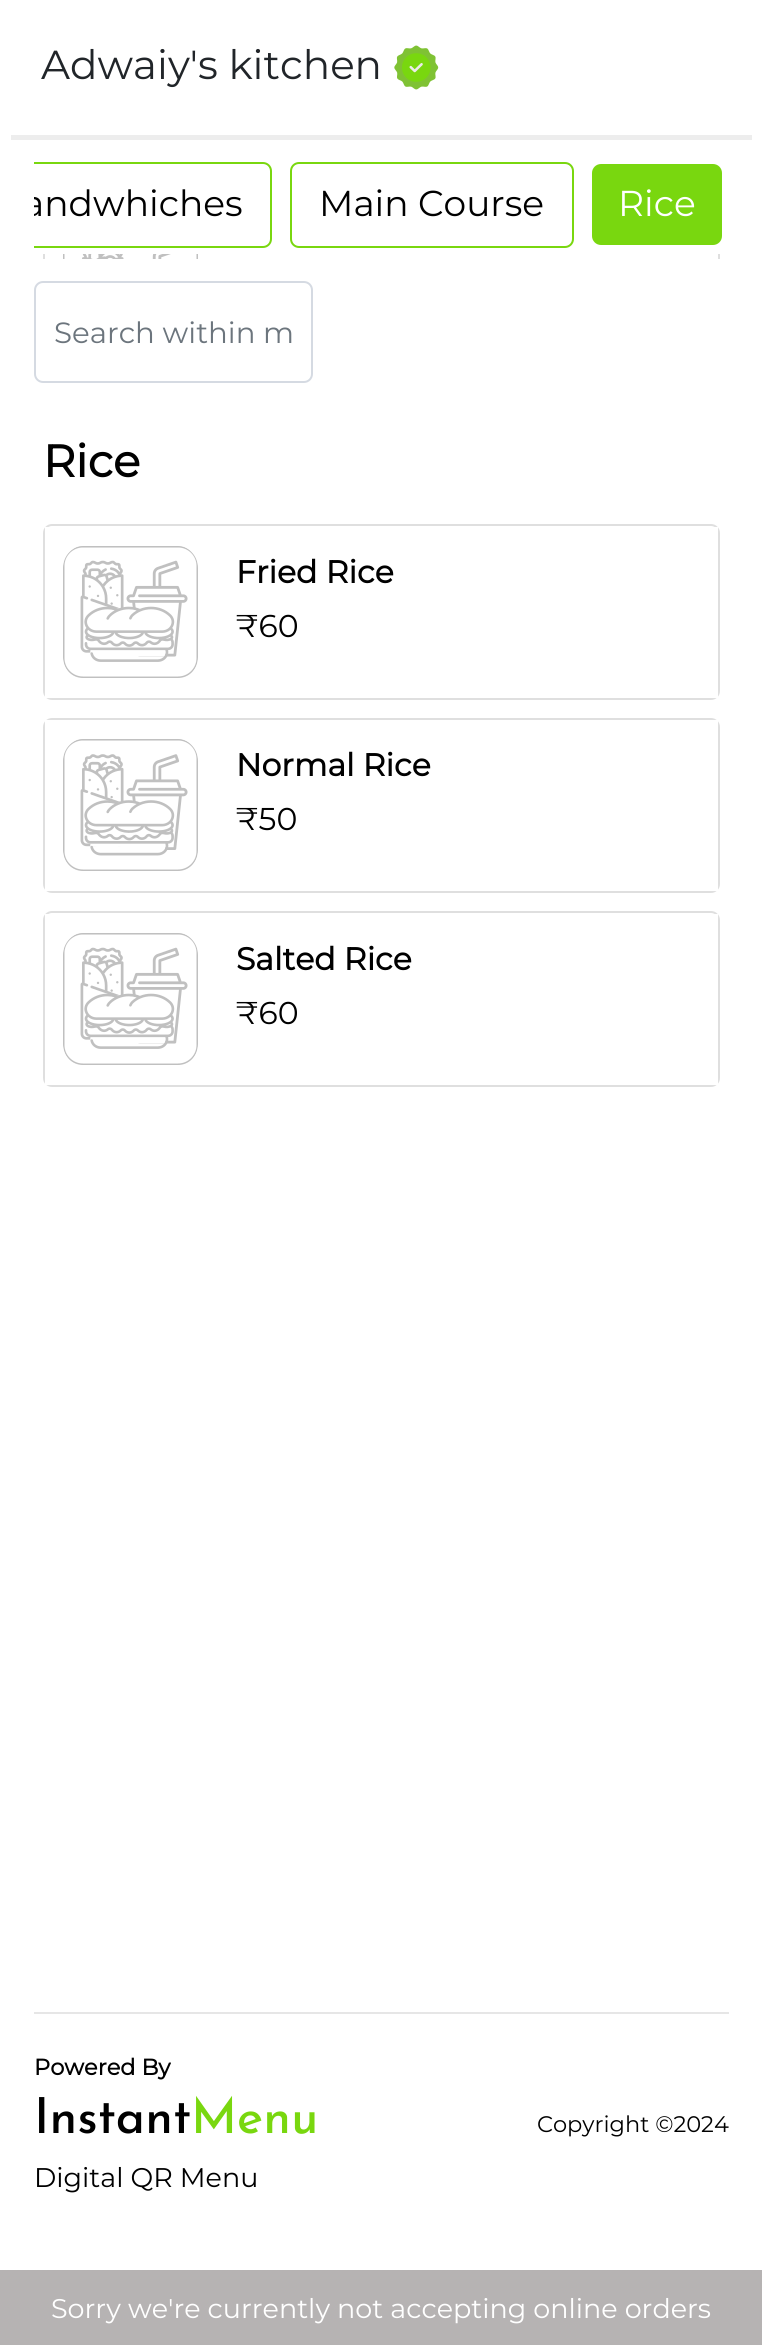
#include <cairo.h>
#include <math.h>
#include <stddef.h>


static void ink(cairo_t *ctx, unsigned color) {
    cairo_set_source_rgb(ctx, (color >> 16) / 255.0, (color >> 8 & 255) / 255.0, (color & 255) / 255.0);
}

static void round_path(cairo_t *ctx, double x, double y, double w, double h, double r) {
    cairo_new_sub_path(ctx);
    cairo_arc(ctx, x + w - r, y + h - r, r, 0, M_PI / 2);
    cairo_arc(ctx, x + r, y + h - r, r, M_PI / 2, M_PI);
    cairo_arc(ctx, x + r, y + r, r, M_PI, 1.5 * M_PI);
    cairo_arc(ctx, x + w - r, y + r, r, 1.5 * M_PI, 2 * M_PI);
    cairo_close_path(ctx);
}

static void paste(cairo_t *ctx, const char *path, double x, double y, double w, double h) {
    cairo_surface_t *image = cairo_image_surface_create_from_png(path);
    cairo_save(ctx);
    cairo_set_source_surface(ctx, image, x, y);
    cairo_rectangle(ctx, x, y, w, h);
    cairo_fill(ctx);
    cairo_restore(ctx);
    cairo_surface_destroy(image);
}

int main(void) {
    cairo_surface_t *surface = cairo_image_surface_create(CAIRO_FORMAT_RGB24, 762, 2345);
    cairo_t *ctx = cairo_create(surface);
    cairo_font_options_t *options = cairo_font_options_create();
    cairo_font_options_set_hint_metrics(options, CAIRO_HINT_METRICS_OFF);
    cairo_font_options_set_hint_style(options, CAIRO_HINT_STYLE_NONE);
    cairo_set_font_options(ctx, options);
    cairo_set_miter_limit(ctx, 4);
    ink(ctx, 0xFFFFFF);
    cairo_paint(ctx);
    cairo_select_font_face(ctx, "Montserrat Thin", CAIRO_FONT_SLANT_NORMAL, CAIRO_FONT_WEIGHT_NORMAL);
    cairo_set_font_size(ctx, 40.5);
    ink(ctx, 0x212529);
    cairo_move_to(ctx, 41, 79);
    cairo_show_text(ctx, "Adwaiy's kitchen");
    paste(ctx, "media/1.png", 394, 45, 45, 45);
    ink(ctx, 0xEDEDED);
    cairo_rectangle(ctx, 11, 135, 741, 5);
    cairo_fill(ctx);
    cairo_rectangle(ctx, 44, 208, 675, 189);
    ink(ctx, 0xDFDFDF);
    cairo_stroke(ctx);
    ink(ctx, 0xFFFFFF);
    cairo_rectangle(ctx, 43, 207, 677, 47);
    cairo_fill(ctx);
    cairo_save(ctx);
    cairo_rectangle(ctx, 34, 140, 695, 114);
    cairo_clip(ctx);
    round_path(ctx, -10, 163, 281, 84, 8);
    ink(ctx, 0x79D70F);
    cairo_stroke(ctx);
    cairo_set_font_size(ctx, 36);
    ink(ctx, 0x000000);
    cairo_move_to(ctx, 23, 216);
    cairo_show_text(ctx, "andwhiches");
    cairo_restore(ctx);
    round_path(ctx, 291, 163, 282, 84, 8);
    ink(ctx, 0x79D70F);
    cairo_stroke(ctx);
    cairo_set_font_size(ctx, 36);
    ink(ctx, 0x000000);
    cairo_move_to(ctx, 319, 216);
    cairo_show_text(ctx, "Main Course");
    ink(ctx, 0x79D70F);
    round_path(ctx, 592, 164, 130, 81, 9);
    cairo_fill(ctx);
    ink(ctx, 0xFFFFFF);
    cairo_move_to(ctx, 618, 216);
    cairo_show_text(ctx, "Rice");
    paste(ctx, "media/2.png", 63, 254, 135, 5);
    cairo_rectangle(ctx, 43, 259, 677, 139);
    cairo_fill(ctx);
    round_path(ctx, 35, 282, 277, 100, 8);
    ink(ctx, 0xD5DAE2);
    cairo_stroke(ctx);
    cairo_set_font_size(ctx, 29.25);
    ink(ctx, 0x6C757D);
    cairo_move_to(ctx, 54, 343);
    cairo_show_text(ctx, "Search within m");
    cairo_select_font_face(ctx, "Montserrat", CAIRO_FONT_SLANT_NORMAL, CAIRO_FONT_WEIGHT_BOLD);
    cairo_set_font_size(ctx, 45);
    ink(ctx, 0x000000);
    cairo_move_to(ctx, 43, 477);
    cairo_show_text(ctx, "Rice");
    round_path(ctx, 44, 525, 675, 174, 8);
    ink(ctx, 0xDFDFDF);
    cairo_stroke(ctx);
    ink(ctx, 0xFFFFFF);
    cairo_rectangle(ctx, 45, 527, 673, 171);
    cairo_fill(ctx);
    paste(ctx, "media/3.png", 63, 546, 135, 132);
    cairo_set_font_size(ctx, 31.5);
    ink(ctx, 0x000000);
    cairo_move_to(ctx, 236, 583);
    cairo_show_text(ctx, "Fried Rice");
    cairo_select_font_face(ctx, "Montserrat Thin", CAIRO_FONT_SLANT_NORMAL, CAIRO_FONT_WEIGHT_NORMAL);
    cairo_move_to(ctx, 236, 637);
    cairo_show_text(ctx, "₹60");
    round_path(ctx, 44, 719, 675, 173, 8);
    ink(ctx, 0xDFDFDF);
    cairo_stroke(ctx);
    ink(ctx, 0xFFFFFF);
    cairo_rectangle(ctx, 45, 720, 673, 171);
    cairo_fill(ctx);
    paste(ctx, "media/4.png", 63, 739, 135, 132);
    cairo_select_font_face(ctx, "Montserrat", CAIRO_FONT_SLANT_NORMAL, CAIRO_FONT_WEIGHT_BOLD);
    ink(ctx, 0x000000);
    cairo_move_to(ctx, 236, 776);
    cairo_show_text(ctx, "Normal Rice");
    cairo_select_font_face(ctx, "Montserrat Thin", CAIRO_FONT_SLANT_NORMAL, CAIRO_FONT_WEIGHT_NORMAL);
    cairo_move_to(ctx, 236, 830);
    cairo_show_text(ctx, "₹50");
    round_path(ctx, 44, 912, 675, 174, 8);
    ink(ctx, 0xDFDFDF);
    cairo_stroke(ctx);
    ink(ctx, 0xFFFFFF);
    cairo_rectangle(ctx, 45, 914, 673, 171);
    cairo_fill(ctx);
    paste(ctx, "media/3.png", 63, 933, 135, 132);
    cairo_select_font_face(ctx, "Montserrat", CAIRO_FONT_SLANT_NORMAL, CAIRO_FONT_WEIGHT_BOLD);
    ink(ctx, 0x000000);
    cairo_move_to(ctx, 236, 970);
    cairo_show_text(ctx, "Salted Rice");
    cairo_select_font_face(ctx, "Montserrat Thin", CAIRO_FONT_SLANT_NORMAL, CAIRO_FONT_WEIGHT_NORMAL);
    cairo_move_to(ctx, 236, 1024);
    cairo_show_text(ctx, "₹60");
    ink(ctx, 0xE6E6E6);
    cairo_rectangle(ctx, 34, 2012, 695, 2);
    cairo_fill(ctx);
    cairo_select_font_face(ctx, "Montserrat", CAIRO_FONT_SLANT_NORMAL, CAIRO_FONT_WEIGHT_BOLD);
    cairo_set_font_size(ctx, 22.5);
    ink(ctx, 0x000000);
    cairo_move_to(ctx, 34, 2075);
    cairo_show_text(ctx, "Powered By");
    cairo_select_font_face(ctx, "Josefin Sans Thin", CAIRO_FONT_SLANT_NORMAL, CAIRO_FONT_WEIGHT_NORMAL);
    cairo_set_font_size(ctx, 49.5);
    cairo_move_to(ctx, 34, 2133);
    cairo_show_text(ctx, "Instant");
    ink(ctx, 0x79D70F);
    cairo_move_to(ctx, 191, 2133);
    cairo_show_text(ctx, "Menu");
    cairo_select_font_face(ctx, "Montserrat Thin", CAIRO_FONT_SLANT_NORMAL, CAIRO_FONT_WEIGHT_NORMAL);
    cairo_set_font_size(ctx, 27);
    ink(ctx, 0x000000);
    cairo_move_to(ctx, 34, 2187);
    cairo_show_text(ctx, "Digital QR Menu");
    cairo_set_font_size(ctx, 22.5);
    cairo_move_to(ctx, 537, 2132);
    cairo_show_text(ctx, "Copyright ©2024");
    ink(ctx, 0xB6B3B3);
    cairo_rectangle(ctx, 0, 2270, 762, 75);
    cairo_fill(ctx);
    cairo_set_font_size(ctx, 27);
    ink(ctx, 0xFFFFFF);
    cairo_move_to(ctx, 51, 2318);
    cairo_show_text(ctx, "Sorry we're currently not accepting online orders");
    cairo_surface_write_to_png(surface, "image.png");
    cairo_font_options_destroy(options);
    cairo_destroy(ctx);
    cairo_surface_destroy(surface);
    return 0;
}
